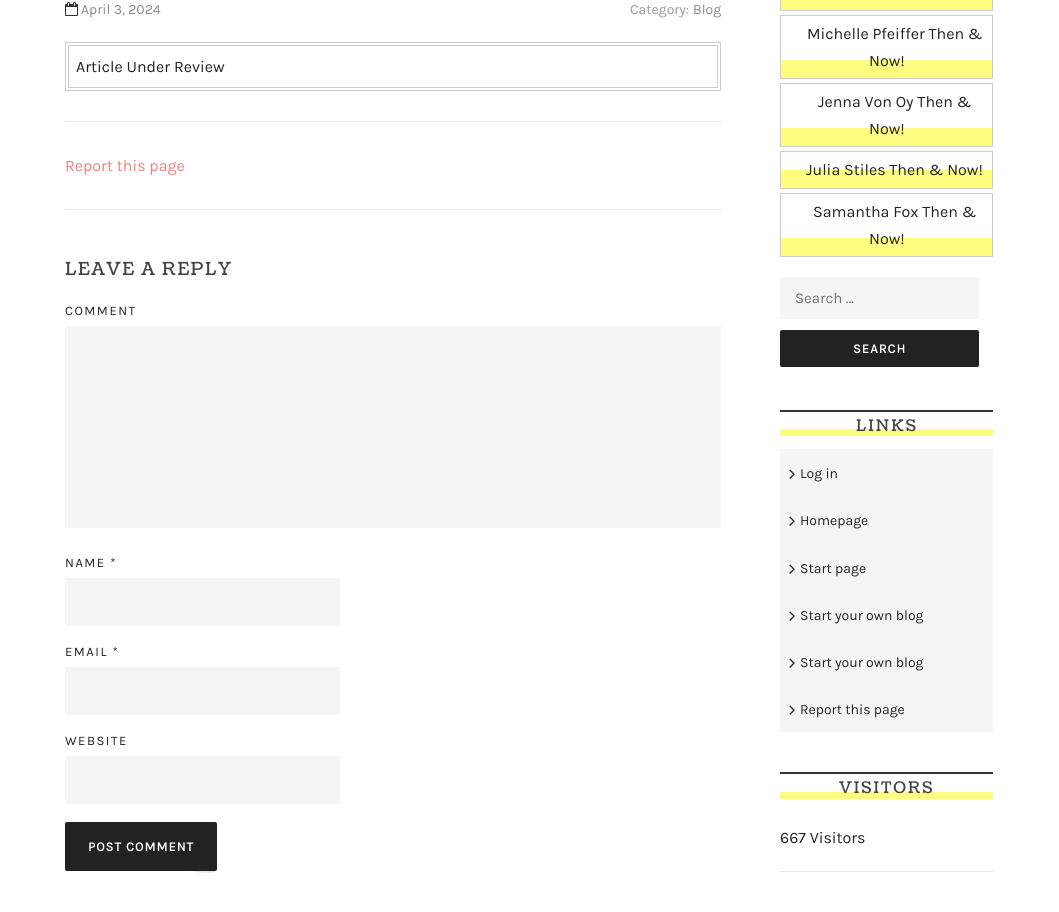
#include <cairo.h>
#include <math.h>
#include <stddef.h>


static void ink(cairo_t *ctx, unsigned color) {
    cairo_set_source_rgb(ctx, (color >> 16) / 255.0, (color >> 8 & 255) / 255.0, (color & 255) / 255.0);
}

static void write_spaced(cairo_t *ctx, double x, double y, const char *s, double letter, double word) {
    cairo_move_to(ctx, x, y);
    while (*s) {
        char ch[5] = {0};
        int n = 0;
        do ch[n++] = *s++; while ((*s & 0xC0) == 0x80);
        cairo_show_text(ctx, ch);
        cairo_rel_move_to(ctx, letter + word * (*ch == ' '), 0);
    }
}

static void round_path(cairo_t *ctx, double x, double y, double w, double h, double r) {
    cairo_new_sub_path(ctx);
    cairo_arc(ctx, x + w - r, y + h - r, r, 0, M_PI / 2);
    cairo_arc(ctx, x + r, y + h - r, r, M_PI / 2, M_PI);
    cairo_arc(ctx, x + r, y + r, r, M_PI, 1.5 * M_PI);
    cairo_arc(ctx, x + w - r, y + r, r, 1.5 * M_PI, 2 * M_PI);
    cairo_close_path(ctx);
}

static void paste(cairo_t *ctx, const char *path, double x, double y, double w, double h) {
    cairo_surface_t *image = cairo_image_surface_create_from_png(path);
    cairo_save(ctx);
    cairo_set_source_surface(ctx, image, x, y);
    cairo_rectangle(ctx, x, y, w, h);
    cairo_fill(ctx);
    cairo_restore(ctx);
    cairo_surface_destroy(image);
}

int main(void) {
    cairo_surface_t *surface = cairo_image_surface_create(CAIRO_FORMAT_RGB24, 1059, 912);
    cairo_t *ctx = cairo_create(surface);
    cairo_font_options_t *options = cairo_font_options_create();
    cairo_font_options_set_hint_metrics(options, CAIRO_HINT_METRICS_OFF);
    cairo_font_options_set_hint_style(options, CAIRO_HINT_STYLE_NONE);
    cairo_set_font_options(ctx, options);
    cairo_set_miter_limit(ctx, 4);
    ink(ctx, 0xFFFFFF);
    cairo_paint(ctx);
    paste(ctx, "media/1.png", 65, 2, 13, 14);
    cairo_select_font_face(ctx, "Karla", CAIRO_FONT_SLANT_NORMAL, CAIRO_FONT_WEIGHT_NORMAL);
    cairo_set_font_size(ctx, 14);
    ink(ctx, 0x888888);
    cairo_move_to(ctx, 81, 14);
    cairo_show_text(ctx, "April 3, 2024");
    ink(ctx, 0x999999);
    cairo_move_to(ctx, 630, 14);
    cairo_show_text(ctx, "Category:");
    ink(ctx, 0x888888);
    cairo_move_to(ctx, 693, 14);
    cairo_show_text(ctx, "Blog");
    cairo_rectangle(ctx, 65.5, 42.5, 655, 48);
    ink(ctx, 0xCCCCCC);
    cairo_set_line_width(ctx, 1);
    cairo_stroke(ctx);
    cairo_rectangle(ctx, 68.5, 45.5, 649, 42);
    cairo_stroke(ctx);
    cairo_set_font_size(ctx, 16);
    ink(ctx, 0x222222);
    cairo_move_to(ctx, 76, 72);
    cairo_show_text(ctx, "Article Under Review");
    ink(ctx, 0xE9E9E9);
    cairo_rectangle(ctx, 65, 121, 656, 1);
    cairo_fill(ctx);
    ink(ctx, 0xF08080);
    cairo_move_to(ctx, 65, 171);
    cairo_show_text(ctx, "Report this page");
    ink(ctx, 0xE9E9E9);
    cairo_rectangle(ctx, 65, 209, 656, 1);
    cairo_fill(ctx);
    cairo_select_font_face(ctx, "Coustard", CAIRO_FONT_SLANT_NORMAL, CAIRO_FONT_WEIGHT_NORMAL);
    cairo_set_font_size(ctx, 18);
    ink(ctx, 0x444444);
    write_spaced(ctx, 65, 275, "LEAVE A REPLY", 1.5, 0);
    cairo_select_font_face(ctx, "Karla", CAIRO_FONT_SLANT_NORMAL, CAIRO_FONT_WEIGHT_NORMAL);
    cairo_set_font_size(ctx, 13);
    ink(ctx, 0x222222);
    write_spaced(ctx, 65, 315, "COMMENT", 1.5, 0);
    ink(ctx, 0xF5F5F5);
    cairo_rectangle(ctx, 65, 326, 656, 202);
    cairo_fill(ctx);
    ink(ctx, 0x222222);
    write_spaced(ctx, 65, 567, "NAME *", 1.5, 0);
    ink(ctx, 0xF5F5F5);
    cairo_rectangle(ctx, 65, 578, 275, 48);
    cairo_fill(ctx);
    ink(ctx, 0x222222);
    write_spaced(ctx, 65, 656, "EMAIL *", 1.5, 0);
    ink(ctx, 0xF5F5F5);
    cairo_rectangle(ctx, 65, 667, 275, 48);
    cairo_fill(ctx);
    ink(ctx, 0x222222);
    write_spaced(ctx, 65, 745, "WEBSITE", 1.5, 0);
    ink(ctx, 0xF5F5F5);
    cairo_rectangle(ctx, 65, 756, 275, 48);
    cairo_fill(ctx);
    ink(ctx, 0x222222);
    round_path(ctx, 65, 822, 152, 49, 2);
    cairo_fill(ctx);
    cairo_set_source_rgba(ctx, 0, 0, 0, 0.1);
    cairo_new_path(ctx);
    cairo_move_to(ctx, 65, 868);
    cairo_curve_to(ctx, 65, 869, 65, 870, 66, 871);
    cairo_line_to(ctx, 190, 871);
    cairo_curve_to(ctx, 193, 871, 217, 877, 217, 868);
    cairo_curve_to(ctx, 217, 869, 216, 870, 215, 870);
    cairo_line_to(ctx, 67, 870);
    cairo_curve_to(ctx, 66, 870, 65, 869, 65, 868);
    cairo_close_path(ctx);
    cairo_fill(ctx);
    cairo_select_font_face(ctx, "Karla", CAIRO_FONT_SLANT_NORMAL, CAIRO_FONT_WEIGHT_BOLD);
    ink(ctx, 0xFFFFFF);
    write_spaced(ctx, 88, 851, "POST COMMENT", 1, 0);
    ink(ctx, 0xFFFC7F);
    cairo_rectangle(ctx, 780.5, -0.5, 212, 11);
    cairo_fill_preserve(ctx);
    ink(ctx, 0xCCCCCC);
    cairo_stroke(ctx);
    ink(ctx, 0xFFFC7F);
    cairo_rectangle(ctx, 781, 60, 211, 18);
    cairo_fill(ctx);
    cairo_rectangle(ctx, 780.5, 15.5, 212, 63);
    ink(ctx, 0xCCCCCC);
    cairo_stroke(ctx);
    cairo_select_font_face(ctx, "Karla", CAIRO_FONT_SLANT_NORMAL, CAIRO_FONT_WEIGHT_NORMAL);
    cairo_set_font_size(ctx, 16);
    ink(ctx, 0x222222);
    cairo_move_to(ctx, 807, 39);
    cairo_show_text(ctx, "Michelle Pfeiffer Then &");
    cairo_move_to(ctx, 869, 66);
    cairo_show_text(ctx, "Now!");
    ink(ctx, 0xFFFC7F);
    cairo_rectangle(ctx, 781, 128, 211, 18);
    cairo_fill(ctx);
    cairo_rectangle(ctx, 780.5, 83.5, 212, 63);
    ink(ctx, 0xCCCCCC);
    cairo_stroke(ctx);
    ink(ctx, 0x222222);
    cairo_move_to(ctx, 818, 107);
    cairo_show_text(ctx, "Jenna Von Oy Then &");
    cairo_move_to(ctx, 869, 134);
    cairo_show_text(ctx, "Now!");
    ink(ctx, 0xFFFC7F);
    cairo_rectangle(ctx, 781, 170, 211, 18);
    cairo_fill(ctx);
    cairo_rectangle(ctx, 780.5, 151.5, 212, 37);
    ink(ctx, 0xCCCCCC);
    cairo_stroke(ctx);
    ink(ctx, 0x222222);
    cairo_move_to(ctx, 806, 175);
    cairo_show_text(ctx, "Julia Stiles Then & Now!");
    ink(ctx, 0xFFFC7F);
    cairo_rectangle(ctx, 781, 238, 211, 18);
    cairo_fill(ctx);
    cairo_rectangle(ctx, 780.5, 193.5, 212, 63);
    ink(ctx, 0xCCCCCC);
    cairo_stroke(ctx);
    ink(ctx, 0x222222);
    cairo_move_to(ctx, 813, 217);
    cairo_show_text(ctx, "Samantha Fox Then &");
    cairo_move_to(ctx, 869, 244);
    cairo_show_text(ctx, "Now!");
    ink(ctx, 0xF5F5F5);
    cairo_rectangle(ctx, 780, 277, 199, 42);
    cairo_fill(ctx);
    cairo_set_font_size(ctx, 15);
    ink(ctx, 0x757575);
    cairo_move_to(ctx, 795, 303);
    cairo_show_text(ctx, "Search …");
    ink(ctx, 0x222222);
    round_path(ctx, 780, 330, 199, 37, 2);
    cairo_fill(ctx);
    cairo_set_source_rgba(ctx, 0, 0, 0, 0.1);
    cairo_new_path(ctx);
    cairo_move_to(ctx, 780, 364);
    cairo_curve_to(ctx, 780, 365, 780, 367, 782, 367);
    cairo_line_to(ctx, 977, 367);
    cairo_curve_to(ctx, 979, 367, 979, 365, 979, 364);
    cairo_curve_to(ctx, 979, 365, 978, 366, 977, 366);
    cairo_line_to(ctx, 782, 366);
    cairo_line_to(ctx, 780, 365);
    cairo_close_path(ctx);
    cairo_fill(ctx);
    cairo_select_font_face(ctx, "Karla", CAIRO_FONT_SLANT_NORMAL, CAIRO_FONT_WEIGHT_BOLD);
    cairo_set_font_size(ctx, 13);
    ink(ctx, 0xFFFFFF);
    write_spaced(ctx, 853, 353, "SEARCH", 1, 0);
    ink(ctx, 0xFFFC7F);
    cairo_rectangle(ctx, 780, 429, 213, 7);
    cairo_fill(ctx);
    ink(ctx, 0x333333);
    cairo_rectangle(ctx, 780, 410, 213, 2);
    cairo_fill(ctx);
    cairo_select_font_face(ctx, "Coustard", CAIRO_FONT_SLANT_NORMAL, CAIRO_FONT_WEIGHT_NORMAL);
    cairo_set_font_size(ctx, 16);
    ink(ctx, 0x444444);
    write_spaced(ctx, 856, 431, "LINKS", 2, 0);
    ink(ctx, 0xF5F5F5);
    cairo_rectangle(ctx, 780, 449, 213, 283);
    cairo_fill(ctx);
    cairo_select_font_face(ctx, "Karla", CAIRO_FONT_SLANT_NORMAL, CAIRO_FONT_WEIGHT_NORMAL);
    cairo_set_font_size(ctx, 22);
    ink(ctx, 0x333333);
    cairo_move_to(ctx, 788, 480);
    cairo_show_text(ctx, "›");
    cairo_set_font_size(ctx, 14);
    ink(ctx, 0x222222);
    cairo_move_to(ctx, 800, 478);
    cairo_show_text(ctx, "Log in");
    cairo_set_font_size(ctx, 22);
    ink(ctx, 0x333333);
    cairo_move_to(ctx, 788, 527);
    cairo_show_text(ctx, "›");
    cairo_set_font_size(ctx, 14);
    ink(ctx, 0x222222);
    cairo_move_to(ctx, 800, 525);
    cairo_show_text(ctx, "Homepage");
    cairo_set_font_size(ctx, 22);
    ink(ctx, 0x333333);
    cairo_move_to(ctx, 788, 575);
    cairo_show_text(ctx, "›");
    cairo_set_font_size(ctx, 14);
    ink(ctx, 0x222222);
    cairo_move_to(ctx, 800, 573);
    cairo_show_text(ctx, "Start page");
    cairo_set_font_size(ctx, 22);
    ink(ctx, 0x333333);
    cairo_move_to(ctx, 788, 622);
    cairo_show_text(ctx, "›");
    cairo_set_font_size(ctx, 14);
    ink(ctx, 0x222222);
    cairo_move_to(ctx, 800, 620);
    cairo_show_text(ctx, "Start your own blog");
    cairo_set_font_size(ctx, 22);
    ink(ctx, 0x333333);
    cairo_move_to(ctx, 788, 669);
    cairo_show_text(ctx, "›");
    cairo_set_font_size(ctx, 14);
    ink(ctx, 0x222222);
    cairo_move_to(ctx, 800, 667);
    cairo_show_text(ctx, "Start your own blog");
    cairo_set_font_size(ctx, 22);
    ink(ctx, 0x333333);
    cairo_move_to(ctx, 788, 716);
    cairo_show_text(ctx, "›");
    cairo_set_font_size(ctx, 14);
    ink(ctx, 0x222222);
    cairo_move_to(ctx, 800, 714);
    cairo_show_text(ctx, "Report this page");
    ink(ctx, 0xFFFC7F);
    cairo_rectangle(ctx, 780, 792, 213, 7);
    cairo_fill(ctx);
    ink(ctx, 0x333333);
    cairo_rectangle(ctx, 780, 772, 213, 2);
    cairo_fill(ctx);
    cairo_select_font_face(ctx, "Coustard", CAIRO_FONT_SLANT_NORMAL, CAIRO_FONT_WEIGHT_NORMAL);
    cairo_set_font_size(ctx, 16);
    ink(ctx, 0x444444);
    write_spaced(ctx, 839, 793, "VISITORS", 2, 0);
    ink(ctx, 0xE9E9E9);
    cairo_rectangle(ctx, 780, 871, 213, 1);
    cairo_fill(ctx);
    cairo_select_font_face(ctx, "Karla", CAIRO_FONT_SLANT_NORMAL, CAIRO_FONT_WEIGHT_NORMAL);
    ink(ctx, 0x222222);
    cairo_move_to(ctx, 780, 843);
    cairo_show_text(ctx, "667 Visitors");
    cairo_surface_write_to_png(surface, "image.png");
    cairo_font_options_destroy(options);
    cairo_destroy(ctx);
    cairo_surface_destroy(surface);
    return 0;
}
